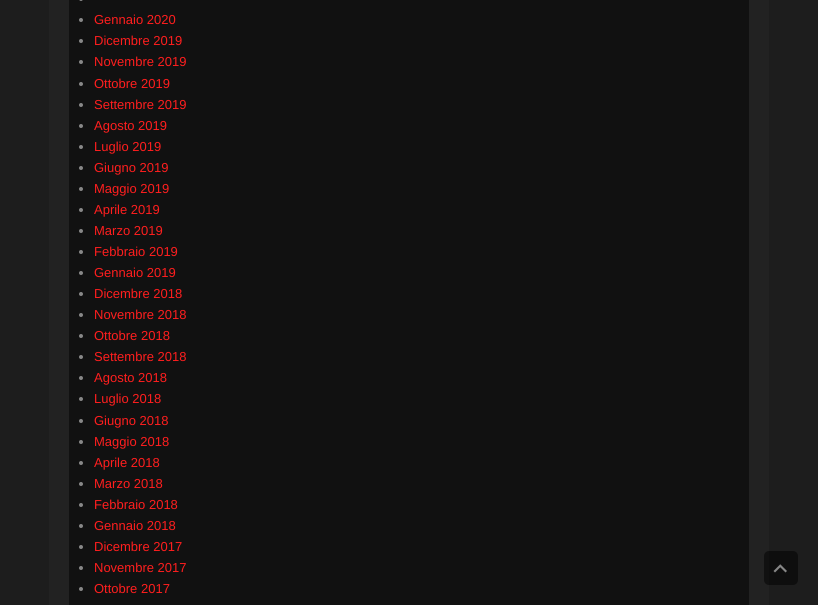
#include <cairo.h>
#include <math.h>
#include <stddef.h>


static void ink(cairo_t *ctx, unsigned color) {
    cairo_set_source_rgb(ctx, (color >> 16) / 255.0, (color >> 8 & 255) / 255.0, (color & 255) / 255.0);
}

static void round_path(cairo_t *ctx, double x, double y, double w, double h, double r) {
    cairo_new_sub_path(ctx);
    cairo_arc(ctx, x + w - r, y + h - r, r, 0, M_PI / 2);
    cairo_arc(ctx, x + r, y + h - r, r, M_PI / 2, M_PI);
    cairo_arc(ctx, x + r, y + r, r, M_PI, 1.5 * M_PI);
    cairo_arc(ctx, x + w - r, y + r, r, 1.5 * M_PI, 2 * M_PI);
    cairo_close_path(ctx);
}

static void paste(cairo_t *ctx, const char *path, double x, double y, double w, double h) {
    cairo_surface_t *image = cairo_image_surface_create_from_png(path);
    cairo_save(ctx);
    cairo_set_source_surface(ctx, image, x, y);
    cairo_rectangle(ctx, x, y, w, h);
    cairo_fill(ctx);
    cairo_restore(ctx);
    cairo_surface_destroy(image);
}

int main(void) {
    cairo_surface_t *surface = cairo_image_surface_create(CAIRO_FORMAT_RGB24, 818, 605);
    cairo_t *ctx = cairo_create(surface);
    cairo_font_options_t *options = cairo_font_options_create();
    cairo_font_options_set_hint_metrics(options, CAIRO_HINT_METRICS_OFF);
    cairo_font_options_set_hint_style(options, CAIRO_HINT_STYLE_NONE);
    cairo_set_font_options(ctx, options);
    cairo_set_miter_limit(ctx, 4);
    ink(ctx, 0x1D1D1D);
    cairo_paint(ctx);
    ink(ctx, 0x222222);
    cairo_rectangle(ctx, 49, 0, 720, 605);
    cairo_fill(ctx);
    ink(ctx, 0x111111);
    cairo_rectangle(ctx, 69, 0, 680, 605);
    cairo_fill(ctx);
    ink(ctx, 0x888888);
    round_path(ctx, 79, -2, 4, 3, 2);
    cairo_fill(ctx);
    cairo_arc(ctx, 81, 20, 2, 0, 2 * M_PI);
    cairo_fill(ctx);
    cairo_select_font_face(ctx, "Liberation Sans", CAIRO_FONT_SLANT_NORMAL, CAIRO_FONT_WEIGHT_NORMAL);
    cairo_set_font_size(ctx, 13);
    ink(ctx, 0xFF1E1E);
    cairo_move_to(ctx, 94, 24);
    cairo_show_text(ctx, "Gennaio 2020");
    ink(ctx, 0x888888);
    cairo_new_path(ctx);
    cairo_arc(ctx, 81, 41, 2, 0, 2 * M_PI);
    cairo_fill(ctx);
    ink(ctx, 0xFF1E1E);
    cairo_move_to(ctx, 94, 45);
    cairo_show_text(ctx, "Dicembre 2019");
    ink(ctx, 0x888888);
    cairo_new_path(ctx);
    cairo_arc(ctx, 81, 62, 2, 0, 2 * M_PI);
    cairo_fill(ctx);
    ink(ctx, 0xFF1E1E);
    cairo_move_to(ctx, 94, 66);
    cairo_show_text(ctx, "Novembre 2019");
    ink(ctx, 0x888888);
    cairo_new_path(ctx);
    cairo_arc(ctx, 81, 84, 2, 0, 2 * M_PI);
    cairo_fill(ctx);
    ink(ctx, 0xFF1E1E);
    cairo_move_to(ctx, 94, 88);
    cairo_show_text(ctx, "Ottobre 2019");
    ink(ctx, 0x888888);
    cairo_new_path(ctx);
    cairo_arc(ctx, 81, 105, 2, 0, 2 * M_PI);
    cairo_fill(ctx);
    ink(ctx, 0xFF1E1E);
    cairo_move_to(ctx, 94, 109);
    cairo_show_text(ctx, "Settembre 2019");
    ink(ctx, 0x888888);
    cairo_new_path(ctx);
    cairo_arc(ctx, 81, 126, 2, 0, 2 * M_PI);
    cairo_fill(ctx);
    ink(ctx, 0xFF1E1E);
    cairo_move_to(ctx, 94, 130);
    cairo_show_text(ctx, "Agosto 2019");
    ink(ctx, 0x888888);
    cairo_new_path(ctx);
    cairo_arc(ctx, 81, 147, 2, 0, 2 * M_PI);
    cairo_fill(ctx);
    ink(ctx, 0xFF1E1E);
    cairo_move_to(ctx, 94, 151);
    cairo_show_text(ctx, "Luglio 2019");
    ink(ctx, 0x888888);
    cairo_new_path(ctx);
    cairo_arc(ctx, 81, 168, 2, 0, 2 * M_PI);
    cairo_fill(ctx);
    ink(ctx, 0xFF1E1E);
    cairo_move_to(ctx, 94, 172);
    cairo_show_text(ctx, "Giugno 2019");
    ink(ctx, 0x888888);
    cairo_new_path(ctx);
    cairo_arc(ctx, 81, 189, 2, 0, 2 * M_PI);
    cairo_fill(ctx);
    ink(ctx, 0xFF1E1E);
    cairo_move_to(ctx, 94, 193);
    cairo_show_text(ctx, "Maggio 2019");
    ink(ctx, 0x888888);
    cairo_new_path(ctx);
    cairo_arc(ctx, 81, 210, 2, 0, 2 * M_PI);
    cairo_fill(ctx);
    ink(ctx, 0xFF1E1E);
    cairo_move_to(ctx, 94, 214);
    cairo_show_text(ctx, "Aprile 2019");
    ink(ctx, 0x888888);
    cairo_new_path(ctx);
    cairo_arc(ctx, 81, 231, 2, 0, 2 * M_PI);
    cairo_fill(ctx);
    ink(ctx, 0xFF1E1E);
    cairo_move_to(ctx, 94, 235);
    cairo_show_text(ctx, "Marzo 2019");
    ink(ctx, 0x888888);
    cairo_new_path(ctx);
    cairo_arc(ctx, 81, 252, 2, 0, 2 * M_PI);
    cairo_fill(ctx);
    ink(ctx, 0xFF1E1E);
    cairo_move_to(ctx, 94, 256);
    cairo_show_text(ctx, "Febbraio 2019");
    ink(ctx, 0x888888);
    cairo_new_path(ctx);
    cairo_arc(ctx, 81, 273, 2, 0, 2 * M_PI);
    cairo_fill(ctx);
    ink(ctx, 0xFF1E1E);
    cairo_move_to(ctx, 94, 277);
    cairo_show_text(ctx, "Gennaio 2019");
    ink(ctx, 0x888888);
    cairo_new_path(ctx);
    cairo_arc(ctx, 81, 294, 2, 0, 2 * M_PI);
    cairo_fill(ctx);
    ink(ctx, 0xFF1E1E);
    cairo_move_to(ctx, 94, 298);
    cairo_show_text(ctx, "Dicembre 2018");
    ink(ctx, 0x888888);
    cairo_new_path(ctx);
    cairo_arc(ctx, 81, 315, 2, 0, 2 * M_PI);
    cairo_fill(ctx);
    ink(ctx, 0xFF1E1E);
    cairo_move_to(ctx, 94, 319);
    cairo_show_text(ctx, "Novembre 2018");
    ink(ctx, 0x888888);
    cairo_new_path(ctx);
    cairo_arc(ctx, 81, 336, 2, 0, 2 * M_PI);
    cairo_fill(ctx);
    ink(ctx, 0xFF1E1E);
    cairo_move_to(ctx, 94, 340);
    cairo_show_text(ctx, "Ottobre 2018");
    ink(ctx, 0x888888);
    cairo_new_path(ctx);
    cairo_arc(ctx, 81, 357, 2, 0, 2 * M_PI);
    cairo_fill(ctx);
    ink(ctx, 0xFF1E1E);
    cairo_move_to(ctx, 94, 361);
    cairo_show_text(ctx, "Settembre 2018");
    ink(ctx, 0x888888);
    cairo_new_path(ctx);
    cairo_arc(ctx, 81, 378, 2, 0, 2 * M_PI);
    cairo_fill(ctx);
    ink(ctx, 0xFF1E1E);
    cairo_move_to(ctx, 94, 382);
    cairo_show_text(ctx, "Agosto 2018");
    ink(ctx, 0x888888);
    cairo_new_path(ctx);
    cairo_arc(ctx, 81, 399, 2, 0, 2 * M_PI);
    cairo_fill(ctx);
    ink(ctx, 0xFF1E1E);
    cairo_move_to(ctx, 94, 403);
    cairo_show_text(ctx, "Luglio 2018");
    ink(ctx, 0x888888);
    cairo_new_path(ctx);
    cairo_arc(ctx, 81, 421, 2, 0, 2 * M_PI);
    cairo_fill(ctx);
    ink(ctx, 0xFF1E1E);
    cairo_move_to(ctx, 94, 425);
    cairo_show_text(ctx, "Giugno 2018");
    ink(ctx, 0x888888);
    cairo_new_path(ctx);
    cairo_arc(ctx, 81, 442, 2, 0, 2 * M_PI);
    cairo_fill(ctx);
    ink(ctx, 0xFF1E1E);
    cairo_move_to(ctx, 94, 446);
    cairo_show_text(ctx, "Maggio 2018");
    ink(ctx, 0x888888);
    cairo_new_path(ctx);
    cairo_arc(ctx, 81, 463, 2, 0, 2 * M_PI);
    cairo_fill(ctx);
    ink(ctx, 0xFF1E1E);
    cairo_move_to(ctx, 94, 467);
    cairo_show_text(ctx, "Aprile 2018");
    ink(ctx, 0x888888);
    cairo_new_path(ctx);
    cairo_arc(ctx, 81, 484, 2, 0, 2 * M_PI);
    cairo_fill(ctx);
    ink(ctx, 0xFF1E1E);
    cairo_move_to(ctx, 94, 488);
    cairo_show_text(ctx, "Marzo 2018");
    ink(ctx, 0x888888);
    cairo_new_path(ctx);
    cairo_arc(ctx, 81, 505, 2, 0, 2 * M_PI);
    cairo_fill(ctx);
    ink(ctx, 0xFF1E1E);
    cairo_move_to(ctx, 94, 509);
    cairo_show_text(ctx, "Febbraio 2018");
    ink(ctx, 0x888888);
    cairo_new_path(ctx);
    cairo_arc(ctx, 81, 526, 2, 0, 2 * M_PI);
    cairo_fill(ctx);
    ink(ctx, 0xFF1E1E);
    cairo_move_to(ctx, 94, 530);
    cairo_show_text(ctx, "Gennaio 2018");
    ink(ctx, 0x888888);
    cairo_new_path(ctx);
    cairo_arc(ctx, 81, 547, 2, 0, 2 * M_PI);
    cairo_fill(ctx);
    ink(ctx, 0xFF1E1E);
    cairo_move_to(ctx, 94, 551);
    cairo_show_text(ctx, "Dicembre 2017");
    ink(ctx, 0x888888);
    cairo_new_path(ctx);
    cairo_arc(ctx, 81, 568, 2, 0, 2 * M_PI);
    cairo_fill(ctx);
    ink(ctx, 0xFF1E1E);
    cairo_move_to(ctx, 94, 572);
    cairo_show_text(ctx, "Novembre 2017");
    ink(ctx, 0x888888);
    cairo_new_path(ctx);
    cairo_arc(ctx, 81, 589, 2, 0, 2 * M_PI);
    cairo_fill(ctx);
    ink(ctx, 0xFF1E1E);
    cairo_move_to(ctx, 94, 593);
    cairo_show_text(ctx, "Ottobre 2017");
    cairo_set_source_rgba(ctx, 0, 0, 0, 0.5);
    round_path(ctx, 764, 551, 34, 34, 5);
    cairo_fill(ctx);
    paste(ctx, "media/1.png", 773, 564, 14, 9);
    cairo_surface_write_to_png(surface, "image.png");
    cairo_font_options_destroy(options);
    cairo_destroy(ctx);
    cairo_surface_destroy(surface);
    return 0;
}
